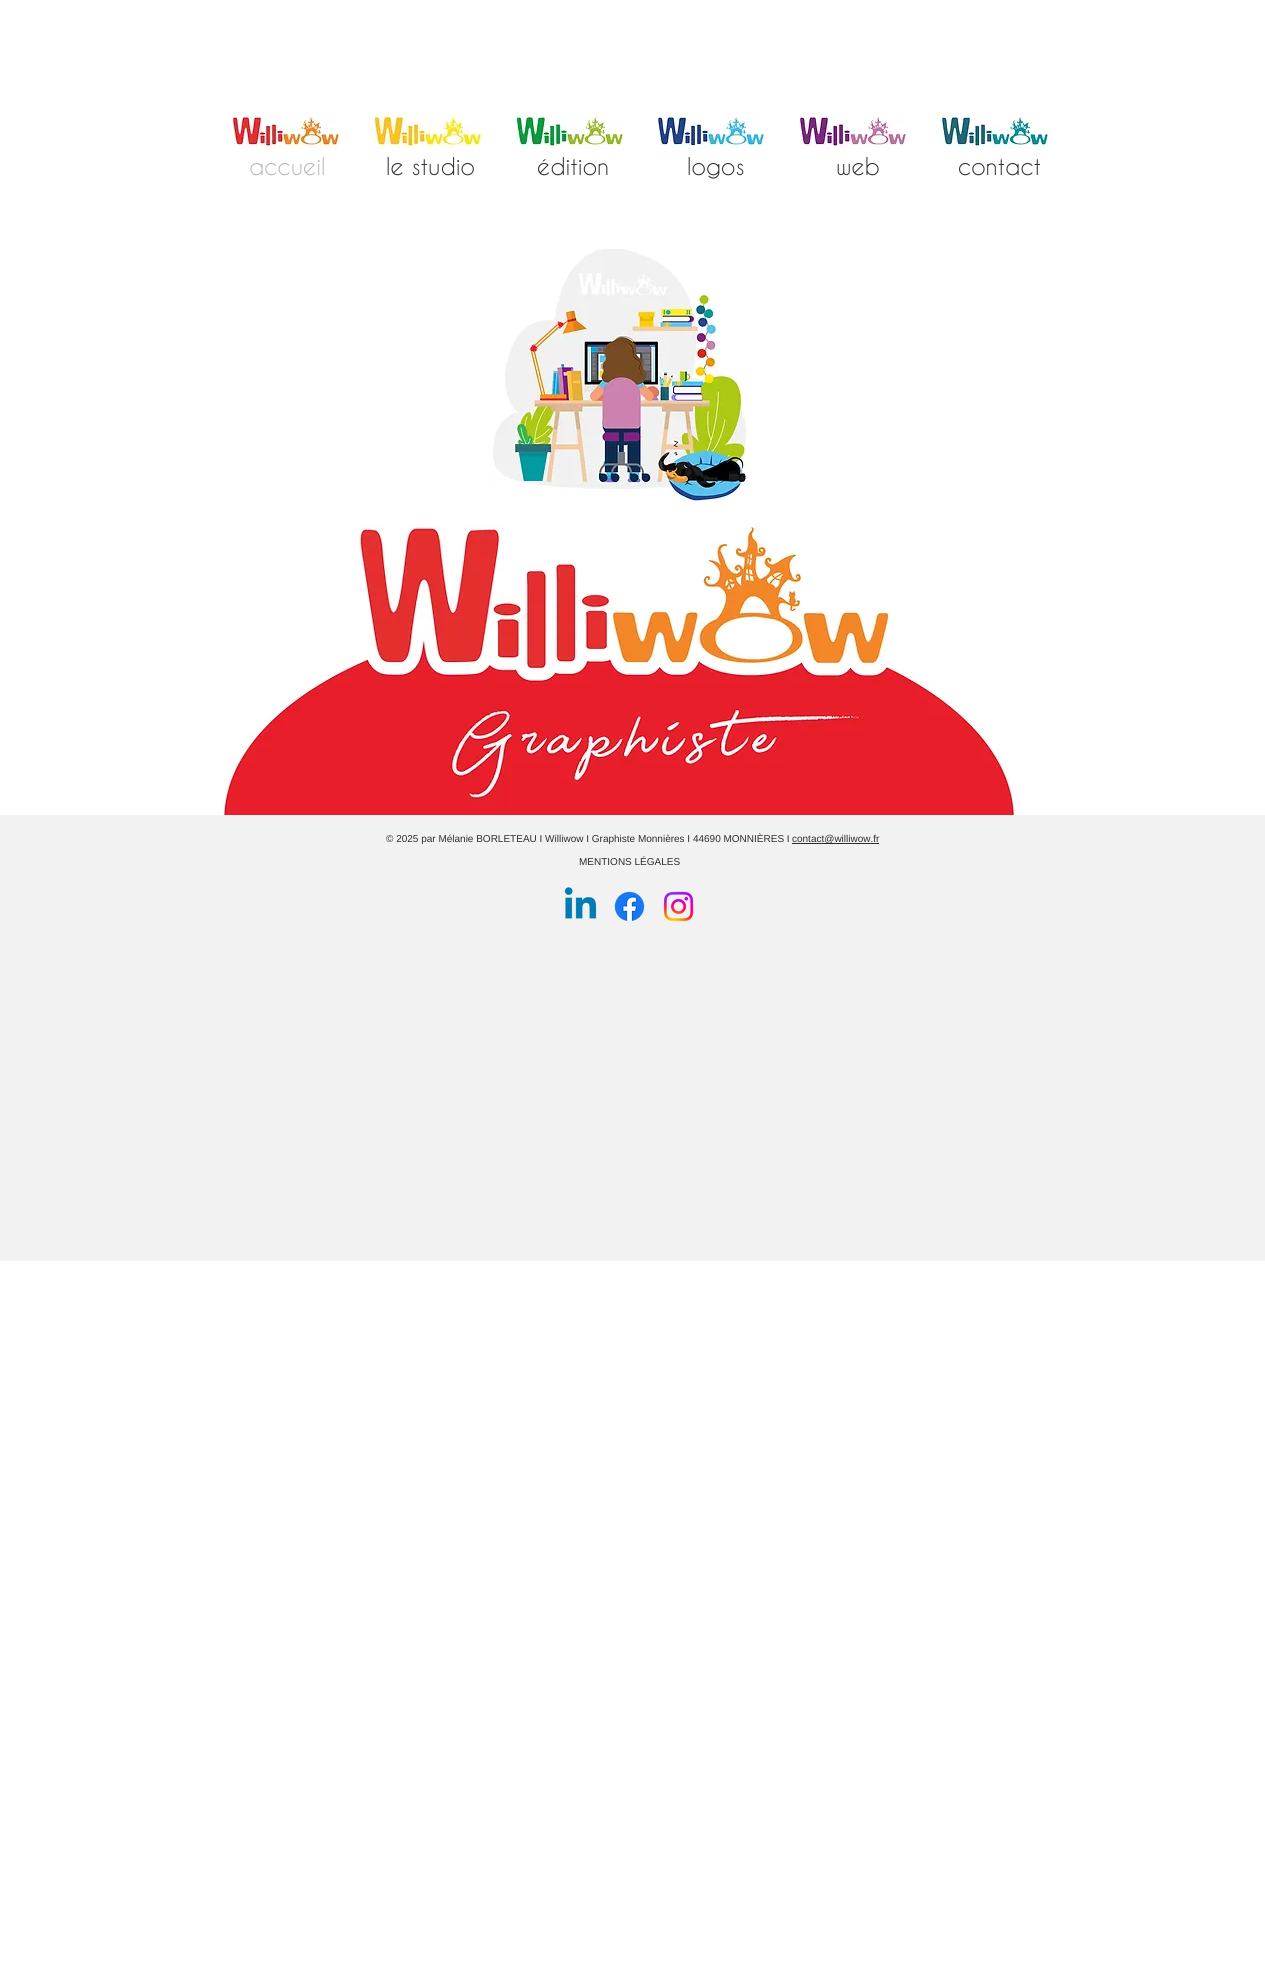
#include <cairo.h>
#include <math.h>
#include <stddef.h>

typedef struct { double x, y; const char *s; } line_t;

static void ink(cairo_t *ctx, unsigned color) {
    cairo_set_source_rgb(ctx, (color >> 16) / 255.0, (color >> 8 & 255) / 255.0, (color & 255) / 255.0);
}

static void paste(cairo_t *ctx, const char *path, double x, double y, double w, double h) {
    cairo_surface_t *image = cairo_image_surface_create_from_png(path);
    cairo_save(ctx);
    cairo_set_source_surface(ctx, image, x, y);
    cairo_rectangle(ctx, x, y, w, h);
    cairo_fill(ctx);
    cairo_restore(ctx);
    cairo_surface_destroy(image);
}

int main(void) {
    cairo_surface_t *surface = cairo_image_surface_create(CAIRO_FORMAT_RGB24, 1265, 1974);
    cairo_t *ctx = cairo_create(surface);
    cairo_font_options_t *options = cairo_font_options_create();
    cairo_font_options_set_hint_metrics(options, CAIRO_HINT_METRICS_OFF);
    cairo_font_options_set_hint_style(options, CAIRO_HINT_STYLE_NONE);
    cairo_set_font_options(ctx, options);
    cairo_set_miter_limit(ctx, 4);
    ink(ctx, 0xFFFFFF);
    cairo_paint(ctx);
    paste(ctx, "media/1.png", 233, 117, 106, 33);
    paste(ctx, "media/2.png", 375, 117, 106, 32);
    paste(ctx, "media/3.png", 517, 117, 106, 32);
    paste(ctx, "media/4.png", 658, 117, 106, 32);
    paste(ctx, "media/5.png", 800, 117, 106, 32);
    paste(ctx, "media/6.png", 942, 117, 106, 32);
    cairo_select_font_face(ctx, "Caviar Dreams", CAIRO_FONT_SLANT_NORMAL, CAIRO_FONT_WEIGHT_NORMAL);
    cairo_set_font_size(ctx, 23);
    ink(ctx, 0xB6B6B6);
    cairo_move_to(ctx, 249, 175);
    cairo_show_text(ctx, "accueil");
    ink(ctx, 0x2E2E2E);
    {
        static const line_t items[] = {
            {386, 175, "le studio"},
            {537, 175, "édition"},
            {687, 175, "logos"},
            {836, 175, "web"},
            {958, 175, "contact"},
        };
        for (size_t i = 0; i < sizeof items / sizeof *items; i++) {
            cairo_move_to(ctx, items[i].x, items[i].y);
            cairo_show_text(ctx, items[i].s);
        }
    }
    paste(ctx, "media/7.png", 493, 249, 253, 252);
    paste(ctx, "media/8.png", 224, 524, 790, 291);
    ink(ctx, 0xF2F2F2);
    cairo_rectangle(ctx, 0, 815, 1265, 446);
    cairo_fill(ctx);
    cairo_select_font_face(ctx, "Liberation Sans", CAIRO_FONT_SLANT_NORMAL, CAIRO_FONT_WEIGHT_NORMAL);
    cairo_set_font_size(ctx, 10);
    ink(ctx, 0x2E2E2E);
    cairo_move_to(ctx, 386, 842);
    cairo_show_text(ctx, "© 2025 par Mélanie BORLETEAU I Williwow I Graphiste Monnières I 44690 MONNIÈRES I");
    cairo_rectangle(ctx, 792, 843, 87, 1);
    cairo_fill(ctx);
    cairo_move_to(ctx, 792, 842);
    cairo_show_text(ctx, "contact@williwow.fr");
    cairo_move_to(ctx, 579, 865);
    cairo_show_text(ctx, "MENTIONS LÉGALES");
    paste(ctx, "media/9.png", 564, 887, 33, 32);
    paste(ctx, "media/10.png", 614, 891, 31, 30);
    paste(ctx, "media/11.png", 663, 891, 31, 31);
    cairo_surface_write_to_png(surface, "image.png");
    cairo_font_options_destroy(options);
    cairo_destroy(ctx);
    cairo_surface_destroy(surface);
    return 0;
}
